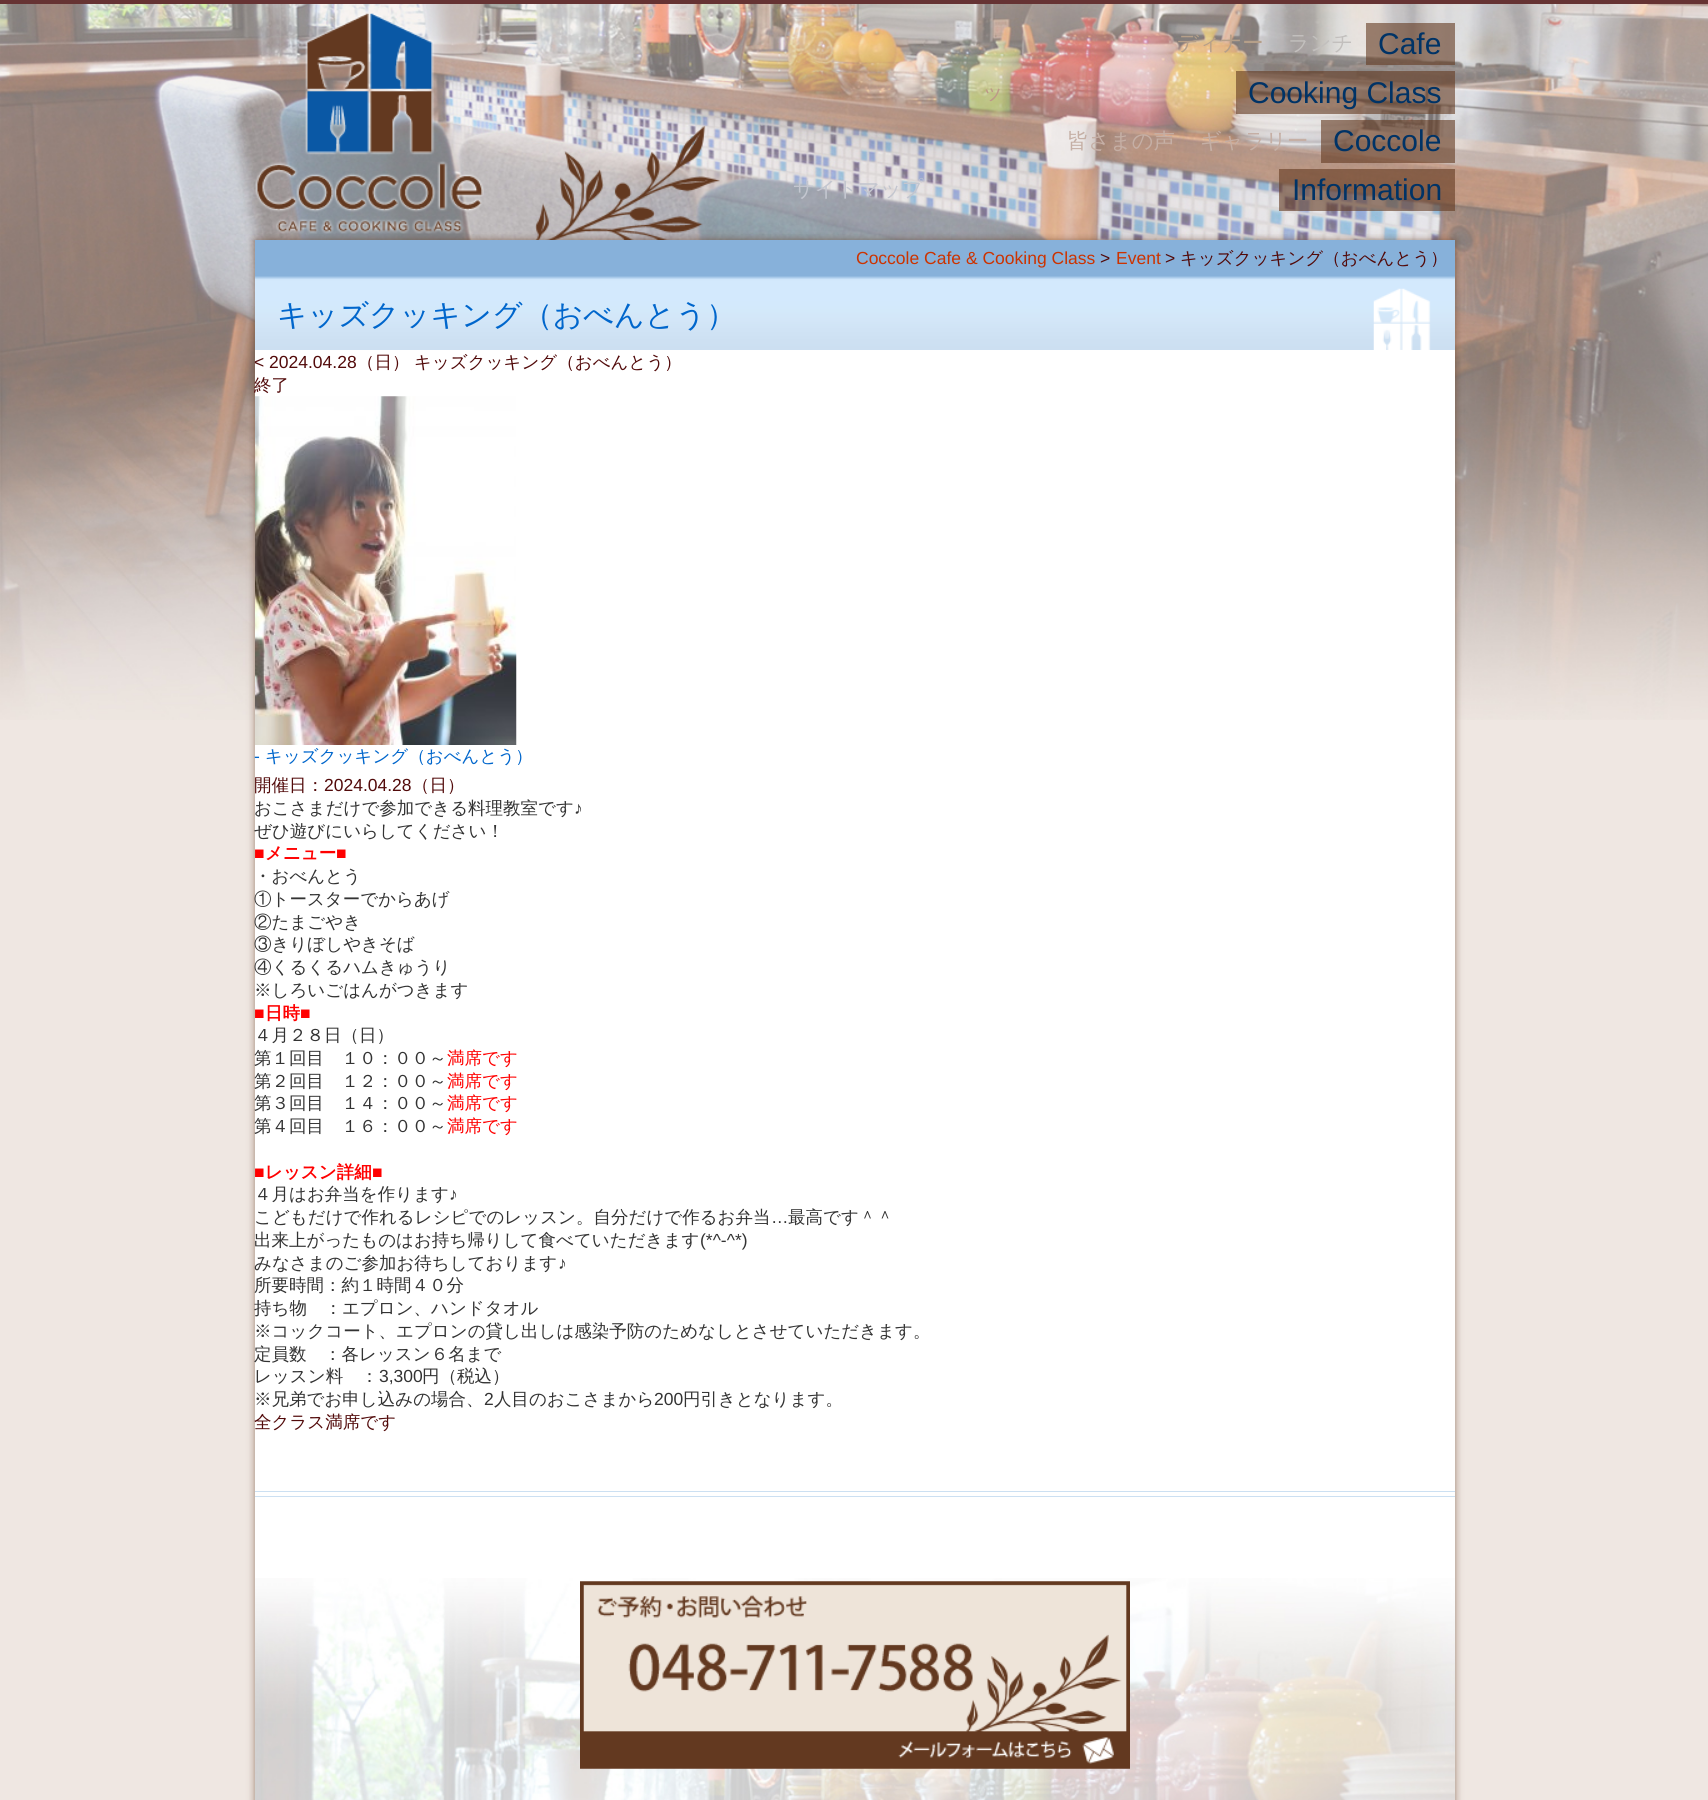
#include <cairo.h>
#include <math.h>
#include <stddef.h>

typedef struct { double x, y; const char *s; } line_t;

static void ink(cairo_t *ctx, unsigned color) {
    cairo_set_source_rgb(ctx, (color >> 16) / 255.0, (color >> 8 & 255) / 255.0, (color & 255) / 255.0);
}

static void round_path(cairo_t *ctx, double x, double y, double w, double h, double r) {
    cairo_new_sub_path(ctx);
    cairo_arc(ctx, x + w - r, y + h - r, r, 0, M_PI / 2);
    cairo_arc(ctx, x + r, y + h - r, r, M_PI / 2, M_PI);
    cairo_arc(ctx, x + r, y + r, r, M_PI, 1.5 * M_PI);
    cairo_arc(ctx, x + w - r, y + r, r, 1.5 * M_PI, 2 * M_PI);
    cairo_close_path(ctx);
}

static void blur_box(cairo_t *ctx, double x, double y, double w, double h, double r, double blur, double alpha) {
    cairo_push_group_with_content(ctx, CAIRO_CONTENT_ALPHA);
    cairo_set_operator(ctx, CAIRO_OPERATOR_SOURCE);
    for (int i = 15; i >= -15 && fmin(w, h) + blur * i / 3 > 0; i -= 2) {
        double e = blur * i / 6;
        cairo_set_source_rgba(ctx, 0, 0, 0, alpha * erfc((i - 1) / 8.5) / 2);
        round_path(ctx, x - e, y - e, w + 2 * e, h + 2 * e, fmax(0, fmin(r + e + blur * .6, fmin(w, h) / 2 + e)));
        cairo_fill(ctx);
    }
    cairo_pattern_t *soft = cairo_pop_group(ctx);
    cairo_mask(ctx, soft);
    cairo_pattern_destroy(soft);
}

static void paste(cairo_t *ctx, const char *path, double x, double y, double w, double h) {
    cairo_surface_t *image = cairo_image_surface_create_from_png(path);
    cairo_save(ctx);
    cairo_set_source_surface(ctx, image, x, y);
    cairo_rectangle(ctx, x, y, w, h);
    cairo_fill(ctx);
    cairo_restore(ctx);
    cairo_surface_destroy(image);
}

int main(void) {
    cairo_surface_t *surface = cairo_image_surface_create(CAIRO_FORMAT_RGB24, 1708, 1800);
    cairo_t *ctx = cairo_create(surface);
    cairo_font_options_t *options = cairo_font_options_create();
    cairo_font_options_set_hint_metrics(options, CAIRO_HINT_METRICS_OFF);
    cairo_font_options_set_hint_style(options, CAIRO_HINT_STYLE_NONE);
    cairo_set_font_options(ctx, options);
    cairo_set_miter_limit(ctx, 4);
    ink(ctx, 0xEFE7E2);
    cairo_paint(ctx);
    paste(ctx, "media/1.png", 0, 4, 1708, 716);
    ink(ctx, 0x663333);
    cairo_rectangle(ctx, 0, 0, 1708, 4);
    cairo_fill(ctx);
    paste(ctx, "media/2.png", 535, 125, 185, 115);
    ink(ctx, 0x633920);
    blur_box(ctx, 255, 240, 1200, 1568, 0, 4, 0.6);
    paste(ctx, "media/3.png", 255, 13, 229, 221);
    cairo_select_font_face(ctx, "WenQuanYi Zen Hei Medium", CAIRO_FONT_SLANT_NORMAL, CAIRO_FONT_WEIGHT_NORMAL);
    cairo_set_font_size(ctx, 21.25);
    ink(ctx, 0xB59F89);
    cairo_move_to(ctx, 1177, 50);
    cairo_show_text(ctx, "ディナー");
    ink(ctx, 0xC2BFBD);
    cairo_move_to(ctx, 1288, 50);
    cairo_show_text(ctx, "ランチ");
    cairo_set_source_rgba(ctx, 0.388, 0.224, 0.125, 0.6);
    cairo_rectangle(ctx, 1366, 23, 89, 42);
    cairo_fill(ctx);
    cairo_select_font_face(ctx, "Liberation Sans", CAIRO_FONT_SLANT_NORMAL, CAIRO_FONT_WEIGHT_NORMAL);
    cairo_set_font_size(ctx, 30);
    ink(ctx, 0x003366);
    cairo_move_to(ctx, 1378, 54);
    cairo_show_text(ctx, "Cafe");
    cairo_select_font_face(ctx, "WenQuanYi Zen Hei Medium", CAIRO_FONT_SLANT_NORMAL, CAIRO_FONT_WEIGHT_NORMAL);
    cairo_set_font_size(ctx, 21.25);
    ink(ctx, 0xBD9888);
    cairo_move_to(ctx, 982, 99);
    cairo_show_text(ctx, "ッ");
    cairo_set_source_rgba(ctx, 0.388, 0.224, 0.125, 0.6);
    cairo_rectangle(ctx, 1236, 71, 219, 43);
    cairo_fill(ctx);
    cairo_select_font_face(ctx, "Liberation Sans", CAIRO_FONT_SLANT_NORMAL, CAIRO_FONT_WEIGHT_NORMAL);
    cairo_set_font_size(ctx, 30);
    ink(ctx, 0x003366);
    cairo_move_to(ctx, 1248, 103);
    cairo_show_text(ctx, "Cooking Class");
    cairo_select_font_face(ctx, "WenQuanYi Zen Hei Medium", CAIRO_FONT_SLANT_NORMAL, CAIRO_FONT_WEIGHT_NORMAL);
    cairo_set_font_size(ctx, 21.25);
    ink(ctx, 0xC5AFA5);
    cairo_move_to(ctx, 1067, 148);
    cairo_show_text(ctx, "皆さまの声");
    cairo_move_to(ctx, 1200, 148);
    cairo_show_text(ctx, "ギャラリー");
    cairo_set_source_rgba(ctx, 0.388, 0.224, 0.125, 0.6);
    cairo_rectangle(ctx, 1321, 120, 134, 43);
    cairo_fill(ctx);
    cairo_select_font_face(ctx, "Liberation Sans", CAIRO_FONT_SLANT_NORMAL, CAIRO_FONT_WEIGHT_NORMAL);
    cairo_set_font_size(ctx, 30);
    ink(ctx, 0x003366);
    cairo_move_to(ctx, 1333, 151);
    cairo_show_text(ctx, "Coccole");
    cairo_select_font_face(ctx, "WenQuanYi Zen Hei Medium", CAIRO_FONT_SLANT_NORMAL, CAIRO_FONT_WEIGHT_NORMAL);
    cairo_set_font_size(ctx, 21.25);
    ink(ctx, 0xC3C6CF);
    cairo_move_to(ctx, 793, 196);
    cairo_show_text(ctx, "サイトマップ");
    cairo_set_source_rgba(ctx, 0.388, 0.224, 0.125, 0.6);
    cairo_rectangle(ctx, 1279, 169, 176, 42);
    cairo_fill(ctx);
    cairo_select_font_face(ctx, "Liberation Sans", CAIRO_FONT_SLANT_NORMAL, CAIRO_FONT_WEIGHT_NORMAL);
    cairo_set_font_size(ctx, 30);
    ink(ctx, 0x003366);
    cairo_move_to(ctx, 1292, 200);
    cairo_show_text(ctx, "Information");
    ink(ctx, 0xFFFFFF);
    cairo_rectangle(ctx, 255, 350, 1200, 1228);
    cairo_fill(ctx);
    ink(ctx, 0x87B1DA);
    cairo_rectangle(ctx, 255, 240, 1200, 35);
    cairo_fill(ctx);
    cairo_set_font_size(ctx, 17.5);
    ink(ctx, 0xCC3300);
    cairo_move_to(ctx, 856, 264);
    cairo_show_text(ctx, "Coccole Cafe & Cooking Class");
    ink(ctx, 0x520A0A);
    cairo_move_to(ctx, 1100, 264);
    cairo_show_text(ctx, ">");
    ink(ctx, 0xCC3300);
    cairo_move_to(ctx, 1116, 264);
    cairo_show_text(ctx, "Event");
    ink(ctx, 0x520A0A);
    cairo_move_to(ctx, 1165, 264);
    cairo_show_text(ctx, ">");
    cairo_select_font_face(ctx, "WenQuanYi Zen Hei Medium", CAIRO_FONT_SLANT_NORMAL, CAIRO_FONT_WEIGHT_NORMAL);
    cairo_move_to(ctx, 1180, 264);
    cairo_show_text(ctx, "キッズクッキング（おべんとう）");
    paste(ctx, "media/4.png", 255, 275, 1200, 75);
    cairo_set_font_size(ctx, 30);
    ink(ctx, 0x0066CC);
    cairo_move_to(ctx, 277, 325);
    cairo_show_text(ctx, "キッズクッキング（おべんとう）");
    cairo_select_font_face(ctx, "Liberation Sans", CAIRO_FONT_SLANT_NORMAL, CAIRO_FONT_WEIGHT_NORMAL);
    cairo_set_font_size(ctx, 17.5);
    ink(ctx, 0x520A0A);
    cairo_move_to(ctx, 254, 368);
    cairo_show_text(ctx, "< 2024.04.28");
    cairo_select_font_face(ctx, "WenQuanYi Zen Hei Medium", CAIRO_FONT_SLANT_NORMAL, CAIRO_FONT_WEIGHT_NORMAL);
    {
        static const line_t items[] = {
            {357, 368, "（日）"},
            {414, 368, "キッズクッキング（おべんとう）"},
            {254, 391, "終了"},
        };
        for (size_t i = 0; i < sizeof items / sizeof *items; i++) {
            cairo_move_to(ctx, items[i].x, items[i].y);
            cairo_show_text(ctx, items[i].s);
        }
    }
    paste(ctx, "media/5.png", 255, 396, 262, 349);
    cairo_select_font_face(ctx, "Liberation Sans", CAIRO_FONT_SLANT_NORMAL, CAIRO_FONT_WEIGHT_NORMAL);
    ink(ctx, 0x0066CC);
    cairo_move_to(ctx, 254, 762);
    cairo_show_text(ctx, "-");
    cairo_select_font_face(ctx, "WenQuanYi Zen Hei Medium", CAIRO_FONT_SLANT_NORMAL, CAIRO_FONT_WEIGHT_NORMAL);
    cairo_move_to(ctx, 265, 762);
    cairo_show_text(ctx, "キッズクッキング（おべんとう）");
    ink(ctx, 0x520A0A);
    cairo_move_to(ctx, 254, 791);
    cairo_show_text(ctx, "開催日：");
    cairo_select_font_face(ctx, "Liberation Sans", CAIRO_FONT_SLANT_NORMAL, CAIRO_FONT_WEIGHT_NORMAL);
    cairo_move_to(ctx, 324, 791);
    cairo_show_text(ctx, "2024.04.28");
    cairo_select_font_face(ctx, "WenQuanYi Zen Hei Medium", CAIRO_FONT_SLANT_NORMAL, CAIRO_FONT_WEIGHT_NORMAL);
    cairo_move_to(ctx, 412, 791);
    cairo_show_text(ctx, "（日）");
    ink(ctx, 0x333333);
    cairo_move_to(ctx, 254, 814);
    cairo_show_text(ctx, "おこさまだけで参加できる料理教室です");
    cairo_select_font_face(ctx, "Liberation Sans", CAIRO_FONT_SLANT_NORMAL, CAIRO_FONT_WEIGHT_NORMAL);
    cairo_move_to(ctx, 574, 814);
    cairo_show_text(ctx, "♪");
    cairo_select_font_face(ctx, "WenQuanYi Zen Hei Medium", CAIRO_FONT_SLANT_NORMAL, CAIRO_FONT_WEIGHT_NORMAL);
    cairo_move_to(ctx, 254, 837);
    cairo_show_text(ctx, "ぜひ遊びにいらしてください！");
    cairo_select_font_face(ctx, "Liberation Sans", CAIRO_FONT_SLANT_NORMAL, CAIRO_FONT_WEIGHT_BOLD);
    ink(ctx, 0xFF0000);
    cairo_move_to(ctx, 254, 859);
    cairo_show_text(ctx, "■");
    cairo_select_font_face(ctx, "WenQuanYi Zen Hei", CAIRO_FONT_SLANT_NORMAL, CAIRO_FONT_WEIGHT_BOLD);
    cairo_move_to(ctx, 265, 859);
    cairo_show_text(ctx, "メニュー");
    cairo_select_font_face(ctx, "Liberation Sans", CAIRO_FONT_SLANT_NORMAL, CAIRO_FONT_WEIGHT_BOLD);
    cairo_move_to(ctx, 336, 859);
    cairo_show_text(ctx, "■");
    cairo_select_font_face(ctx, "WenQuanYi Zen Hei Medium", CAIRO_FONT_SLANT_NORMAL, CAIRO_FONT_WEIGHT_NORMAL);
    ink(ctx, 0x333333);
    {
        static const line_t items[] = {
            {254, 882, "・おべんとう"},
            {254, 905, "①トースターでからあげ"},
            {254, 928, "②たまごやき"},
            {254, 950, "③きりぼしやきそば"},
            {254, 973, "④くるくるハムきゅうり"},
            {254, 996, "※しろいごはんがつきます"},
        };
        for (size_t i = 0; i < sizeof items / sizeof *items; i++) {
            cairo_move_to(ctx, items[i].x, items[i].y);
            cairo_show_text(ctx, items[i].s);
        }
    }
    cairo_select_font_face(ctx, "Liberation Sans", CAIRO_FONT_SLANT_NORMAL, CAIRO_FONT_WEIGHT_BOLD);
    ink(ctx, 0xFF0000);
    cairo_move_to(ctx, 254, 1019);
    cairo_show_text(ctx, "■");
    cairo_select_font_face(ctx, "WenQuanYi Zen Hei", CAIRO_FONT_SLANT_NORMAL, CAIRO_FONT_WEIGHT_BOLD);
    cairo_move_to(ctx, 265, 1019);
    cairo_show_text(ctx, "日時");
    cairo_select_font_face(ctx, "Liberation Sans", CAIRO_FONT_SLANT_NORMAL, CAIRO_FONT_WEIGHT_BOLD);
    cairo_move_to(ctx, 300, 1019);
    cairo_show_text(ctx, "■");
    cairo_select_font_face(ctx, "WenQuanYi Zen Hei Medium", CAIRO_FONT_SLANT_NORMAL, CAIRO_FONT_WEIGHT_NORMAL);
    ink(ctx, 0x333333);
    cairo_move_to(ctx, 254, 1041);
    cairo_show_text(ctx, "４月２８日（日）");
    cairo_move_to(ctx, 254, 1064);
    cairo_show_text(ctx, "第１回目　１０：００～");
    ink(ctx, 0xFF0000);
    cairo_move_to(ctx, 447, 1064);
    cairo_show_text(ctx, "満席です");
    ink(ctx, 0x333333);
    cairo_move_to(ctx, 254, 1087);
    cairo_show_text(ctx, "第２回目　１２：００～");
    ink(ctx, 0xFF0000);
    cairo_move_to(ctx, 447, 1087);
    cairo_show_text(ctx, "満席です");
    ink(ctx, 0x333333);
    cairo_move_to(ctx, 254, 1109);
    cairo_show_text(ctx, "第３回目　１４：００～");
    ink(ctx, 0xFF0000);
    cairo_move_to(ctx, 447, 1109);
    cairo_show_text(ctx, "満席です");
    ink(ctx, 0x333333);
    cairo_move_to(ctx, 254, 1132);
    cairo_show_text(ctx, "第４回目　１６：００～");
    ink(ctx, 0xFF0000);
    cairo_move_to(ctx, 447, 1132);
    cairo_show_text(ctx, "満席です");
    cairo_select_font_face(ctx, "Liberation Sans", CAIRO_FONT_SLANT_NORMAL, CAIRO_FONT_WEIGHT_BOLD);
    cairo_move_to(ctx, 254, 1178);
    cairo_show_text(ctx, "■");
    cairo_select_font_face(ctx, "WenQuanYi Zen Hei", CAIRO_FONT_SLANT_NORMAL, CAIRO_FONT_WEIGHT_BOLD);
    cairo_move_to(ctx, 265, 1178);
    cairo_show_text(ctx, "レッスン詳細");
    cairo_select_font_face(ctx, "Liberation Sans", CAIRO_FONT_SLANT_NORMAL, CAIRO_FONT_WEIGHT_BOLD);
    cairo_move_to(ctx, 372, 1178);
    cairo_show_text(ctx, "■");
    cairo_select_font_face(ctx, "WenQuanYi Zen Hei Medium", CAIRO_FONT_SLANT_NORMAL, CAIRO_FONT_WEIGHT_NORMAL);
    ink(ctx, 0x333333);
    cairo_move_to(ctx, 254, 1200);
    cairo_show_text(ctx, "４月はお弁当を作ります");
    cairo_select_font_face(ctx, "Liberation Sans", CAIRO_FONT_SLANT_NORMAL, CAIRO_FONT_WEIGHT_NORMAL);
    cairo_move_to(ctx, 449, 1200);
    cairo_show_text(ctx, "♪");
    cairo_select_font_face(ctx, "WenQuanYi Zen Hei Medium", CAIRO_FONT_SLANT_NORMAL, CAIRO_FONT_WEIGHT_NORMAL);
    cairo_move_to(ctx, 254, 1223);
    cairo_show_text(ctx, "こどもだけで作れるレシピでのレッスン。自分だけで作るお弁当");
    cairo_select_font_face(ctx, "Liberation Sans", CAIRO_FONT_SLANT_NORMAL, CAIRO_FONT_WEIGHT_NORMAL);
    cairo_move_to(ctx, 771, 1223);
    cairo_show_text(ctx, "…");
    cairo_select_font_face(ctx, "WenQuanYi Zen Hei Medium", CAIRO_FONT_SLANT_NORMAL, CAIRO_FONT_WEIGHT_NORMAL);
    cairo_move_to(ctx, 788, 1223);
    cairo_show_text(ctx, "最高です＾＾");
    cairo_move_to(ctx, 254, 1246);
    cairo_show_text(ctx, "出来上がったものはお持ち帰りして食べていただきます");
    cairo_select_font_face(ctx, "Liberation Sans", CAIRO_FONT_SLANT_NORMAL, CAIRO_FONT_WEIGHT_NORMAL);
    cairo_move_to(ctx, 700, 1246);
    cairo_show_text(ctx, "(*^-^*)");
    cairo_select_font_face(ctx, "WenQuanYi Zen Hei Medium", CAIRO_FONT_SLANT_NORMAL, CAIRO_FONT_WEIGHT_NORMAL);
    cairo_move_to(ctx, 254, 1269);
    cairo_show_text(ctx, "みなさまのご参加お待ちしております");
    cairo_select_font_face(ctx, "Liberation Sans", CAIRO_FONT_SLANT_NORMAL, CAIRO_FONT_WEIGHT_NORMAL);
    cairo_move_to(ctx, 558, 1269);
    cairo_show_text(ctx, "♪");
    cairo_select_font_face(ctx, "WenQuanYi Zen Hei Medium", CAIRO_FONT_SLANT_NORMAL, CAIRO_FONT_WEIGHT_NORMAL);
    {
        static const line_t items[] = {
            {254, 1291, "所要時間：約１時間４０分"},
            {254, 1314, "持ち物　：エプロン、ハンドタオル"},
            {254, 1337, "※コックコート、エプロンの貸し出しは感染予防のためなしとさせていただきます。"},
            {254, 1360, "定員数　：各レッスン６名まで"},
            {254, 1382, "レッスン料　："},
        };
        for (size_t i = 0; i < sizeof items / sizeof *items; i++) {
            cairo_move_to(ctx, items[i].x, items[i].y);
            cairo_show_text(ctx, items[i].s);
        }
    }
    cairo_select_font_face(ctx, "Liberation Sans", CAIRO_FONT_SLANT_NORMAL, CAIRO_FONT_WEIGHT_NORMAL);
    cairo_move_to(ctx, 379, 1382);
    cairo_show_text(ctx, "3,300");
    cairo_select_font_face(ctx, "WenQuanYi Zen Hei Medium", CAIRO_FONT_SLANT_NORMAL, CAIRO_FONT_WEIGHT_NORMAL);
    cairo_move_to(ctx, 422, 1382);
    cairo_show_text(ctx, "円（税込）");
    cairo_move_to(ctx, 254, 1405);
    cairo_show_text(ctx, "※兄弟でお申し込みの場合、");
    cairo_select_font_face(ctx, "Liberation Sans", CAIRO_FONT_SLANT_NORMAL, CAIRO_FONT_WEIGHT_NORMAL);
    cairo_move_to(ctx, 484, 1405);
    cairo_show_text(ctx, "2");
    cairo_select_font_face(ctx, "WenQuanYi Zen Hei Medium", CAIRO_FONT_SLANT_NORMAL, CAIRO_FONT_WEIGHT_NORMAL);
    cairo_move_to(ctx, 494, 1405);
    cairo_show_text(ctx, "人目のおこさまから");
    cairo_select_font_face(ctx, "Liberation Sans", CAIRO_FONT_SLANT_NORMAL, CAIRO_FONT_WEIGHT_NORMAL);
    cairo_move_to(ctx, 654, 1405);
    cairo_show_text(ctx, "200");
    cairo_select_font_face(ctx, "WenQuanYi Zen Hei Medium", CAIRO_FONT_SLANT_NORMAL, CAIRO_FONT_WEIGHT_NORMAL);
    cairo_move_to(ctx, 683, 1405);
    cairo_show_text(ctx, "円引きとなります。");
    ink(ctx, 0x520A0A);
    cairo_move_to(ctx, 254, 1428);
    cairo_show_text(ctx, "全クラス満席です");
    ink(ctx, 0xCCE0F2);
    cairo_rectangle(ctx, 255, 1491, 1200, 1);
    cairo_fill(ctx);
    cairo_rectangle(ctx, 255, 1496, 1200, 1);
    cairo_fill(ctx);
    paste(ctx, "media/6.png", 255, 1578, 1200, 222);
    paste(ctx, "media/7.png", 580, 1581, 550, 188);
    cairo_surface_write_to_png(surface, "image.png");
    cairo_font_options_destroy(options);
    cairo_destroy(ctx);
    cairo_surface_destroy(surface);
    return 0;
}
